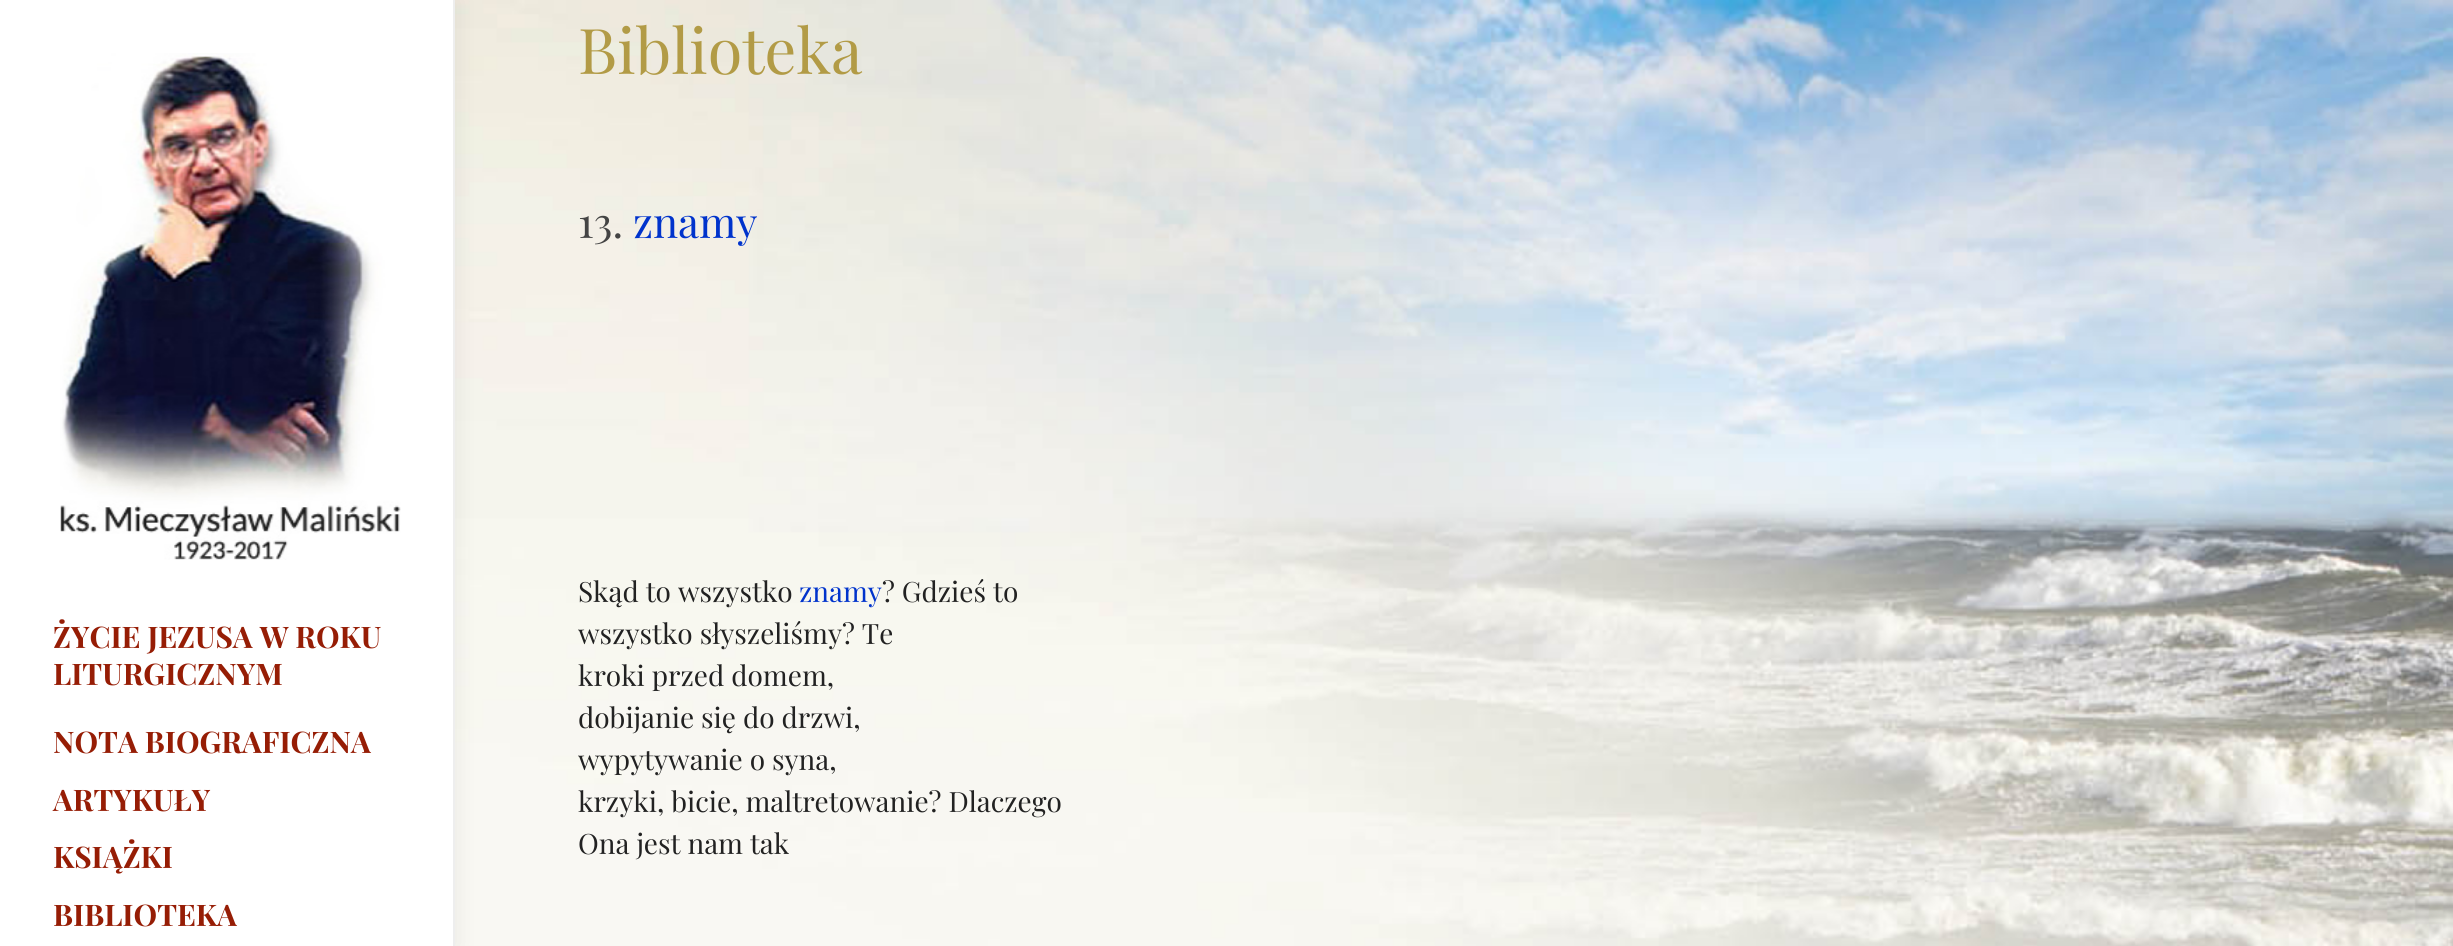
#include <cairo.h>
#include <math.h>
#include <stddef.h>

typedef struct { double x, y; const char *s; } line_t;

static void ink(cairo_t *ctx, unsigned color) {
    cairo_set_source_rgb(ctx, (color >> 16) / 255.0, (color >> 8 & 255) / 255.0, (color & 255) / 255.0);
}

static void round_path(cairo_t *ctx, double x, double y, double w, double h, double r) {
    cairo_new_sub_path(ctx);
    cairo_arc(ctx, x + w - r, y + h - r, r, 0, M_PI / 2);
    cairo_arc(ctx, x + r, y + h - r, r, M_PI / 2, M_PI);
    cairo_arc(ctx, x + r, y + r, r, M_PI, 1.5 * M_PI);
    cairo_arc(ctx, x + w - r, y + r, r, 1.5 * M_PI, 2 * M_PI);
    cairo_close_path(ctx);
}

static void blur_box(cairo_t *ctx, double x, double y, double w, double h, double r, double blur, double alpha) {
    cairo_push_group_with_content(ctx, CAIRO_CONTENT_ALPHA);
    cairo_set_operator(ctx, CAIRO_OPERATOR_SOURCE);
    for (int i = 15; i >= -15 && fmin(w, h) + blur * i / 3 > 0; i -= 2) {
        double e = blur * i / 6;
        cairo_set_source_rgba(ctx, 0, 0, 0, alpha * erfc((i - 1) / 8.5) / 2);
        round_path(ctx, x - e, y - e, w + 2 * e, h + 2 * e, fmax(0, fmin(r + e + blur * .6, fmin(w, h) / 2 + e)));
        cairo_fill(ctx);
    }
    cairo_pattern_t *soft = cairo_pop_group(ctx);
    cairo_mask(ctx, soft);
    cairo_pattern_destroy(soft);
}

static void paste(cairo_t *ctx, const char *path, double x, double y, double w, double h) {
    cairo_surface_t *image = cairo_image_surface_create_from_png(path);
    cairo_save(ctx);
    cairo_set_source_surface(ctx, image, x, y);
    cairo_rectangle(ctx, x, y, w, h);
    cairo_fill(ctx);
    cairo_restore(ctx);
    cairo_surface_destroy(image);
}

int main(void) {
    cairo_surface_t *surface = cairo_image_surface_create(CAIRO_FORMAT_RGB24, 2453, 946);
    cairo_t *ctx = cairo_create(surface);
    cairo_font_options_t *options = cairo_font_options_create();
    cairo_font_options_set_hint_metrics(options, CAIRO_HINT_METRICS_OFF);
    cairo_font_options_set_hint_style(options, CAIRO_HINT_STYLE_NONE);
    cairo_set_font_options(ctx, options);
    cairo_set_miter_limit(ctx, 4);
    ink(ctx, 0xFFFFFF);
    cairo_paint(ctx);
    paste(ctx, "media/1.png", 455, 0, 1998, 946);
    ink(ctx, 0x000000);
    blur_box(ctx, 0, 0, 455, 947, 0, 13, 0.07);
    ink(ctx, 0xFFFFFF);
    cairo_rectangle(ctx, 0, 0, 453, 946);
    cairo_fill(ctx);
    ink(ctx, 0xEEEEEE);
    cairo_rectangle(ctx, 453, 0, 2, 946);
    cairo_fill(ctx);
    paste(ctx, "media/2.png", 60, 53, 341, 507);
    cairo_select_font_face(ctx, "Playfair Display", CAIRO_FONT_SLANT_NORMAL, CAIRO_FONT_WEIGHT_BOLD);
    cairo_set_font_size(ctx, 29.75);
    ink(ctx, 0x961D05);
    {
        static const line_t items[] = {
            {53, 648, "ŻYCIE JEZUSA W ROKU"},
            {53, 685, "LITURGICZNYM"},
            {53, 753, "NOTA BIOGRAFICZNA"},
            {53, 811, "ARTYKUŁY"},
            {53, 868, "KSIĄŻKI"},
            {53, 926, "BIBLIOTEKA"},
        };
        for (size_t i = 0; i < sizeof items / sizeof *items; i++) {
            cairo_move_to(ctx, items[i].x, items[i].y);
            cairo_show_text(ctx, items[i].s);
        }
    }
    cairo_select_font_face(ctx, "Playfair Display", CAIRO_FONT_SLANT_NORMAL, CAIRO_FONT_WEIGHT_NORMAL);
    cairo_set_font_size(ctx, 63);
    ink(ctx, 0xB29B46);
    cairo_move_to(ctx, 578, 74);
    cairo_show_text(ctx, "Biblioteka");
    cairo_set_font_size(ctx, 42);
    ink(ctx, 0x444444);
    cairo_move_to(ctx, 578, 238);
    cairo_show_text(ctx, "13.");
    ink(ctx, 0x0033CC);
    cairo_move_to(ctx, 633, 238);
    cairo_show_text(ctx, "znamy");
    cairo_set_font_size(ctx, 28);
    ink(ctx, 0x222222);
    cairo_move_to(ctx, 578, 602);
    cairo_show_text(ctx, "Skąd to wszystko");
    ink(ctx, 0x0033CC);
    cairo_move_to(ctx, 799, 602);
    cairo_show_text(ctx, "znamy");
    ink(ctx, 0x222222);
    {
        static const line_t items[] = {
            {882, 602, "? Gdzieś to"},
            {578, 644, "wszystko słyszeliśmy? Te"},
            {578, 686, "kroki przed domem,"},
            {578, 728, "dobijanie się do drzwi,"},
            {578, 770, "wypytywanie o syna,"},
            {578, 812, "krzyki, bicie, maltretowanie? Dlaczego"},
            {578, 854, "Ona jest nam tak"},
        };
        for (size_t i = 0; i < sizeof items / sizeof *items; i++) {
            cairo_move_to(ctx, items[i].x, items[i].y);
            cairo_show_text(ctx, items[i].s);
        }
    }
    cairo_surface_write_to_png(surface, "image.png");
    cairo_font_options_destroy(options);
    cairo_destroy(ctx);
    cairo_surface_destroy(surface);
    return 0;
}
